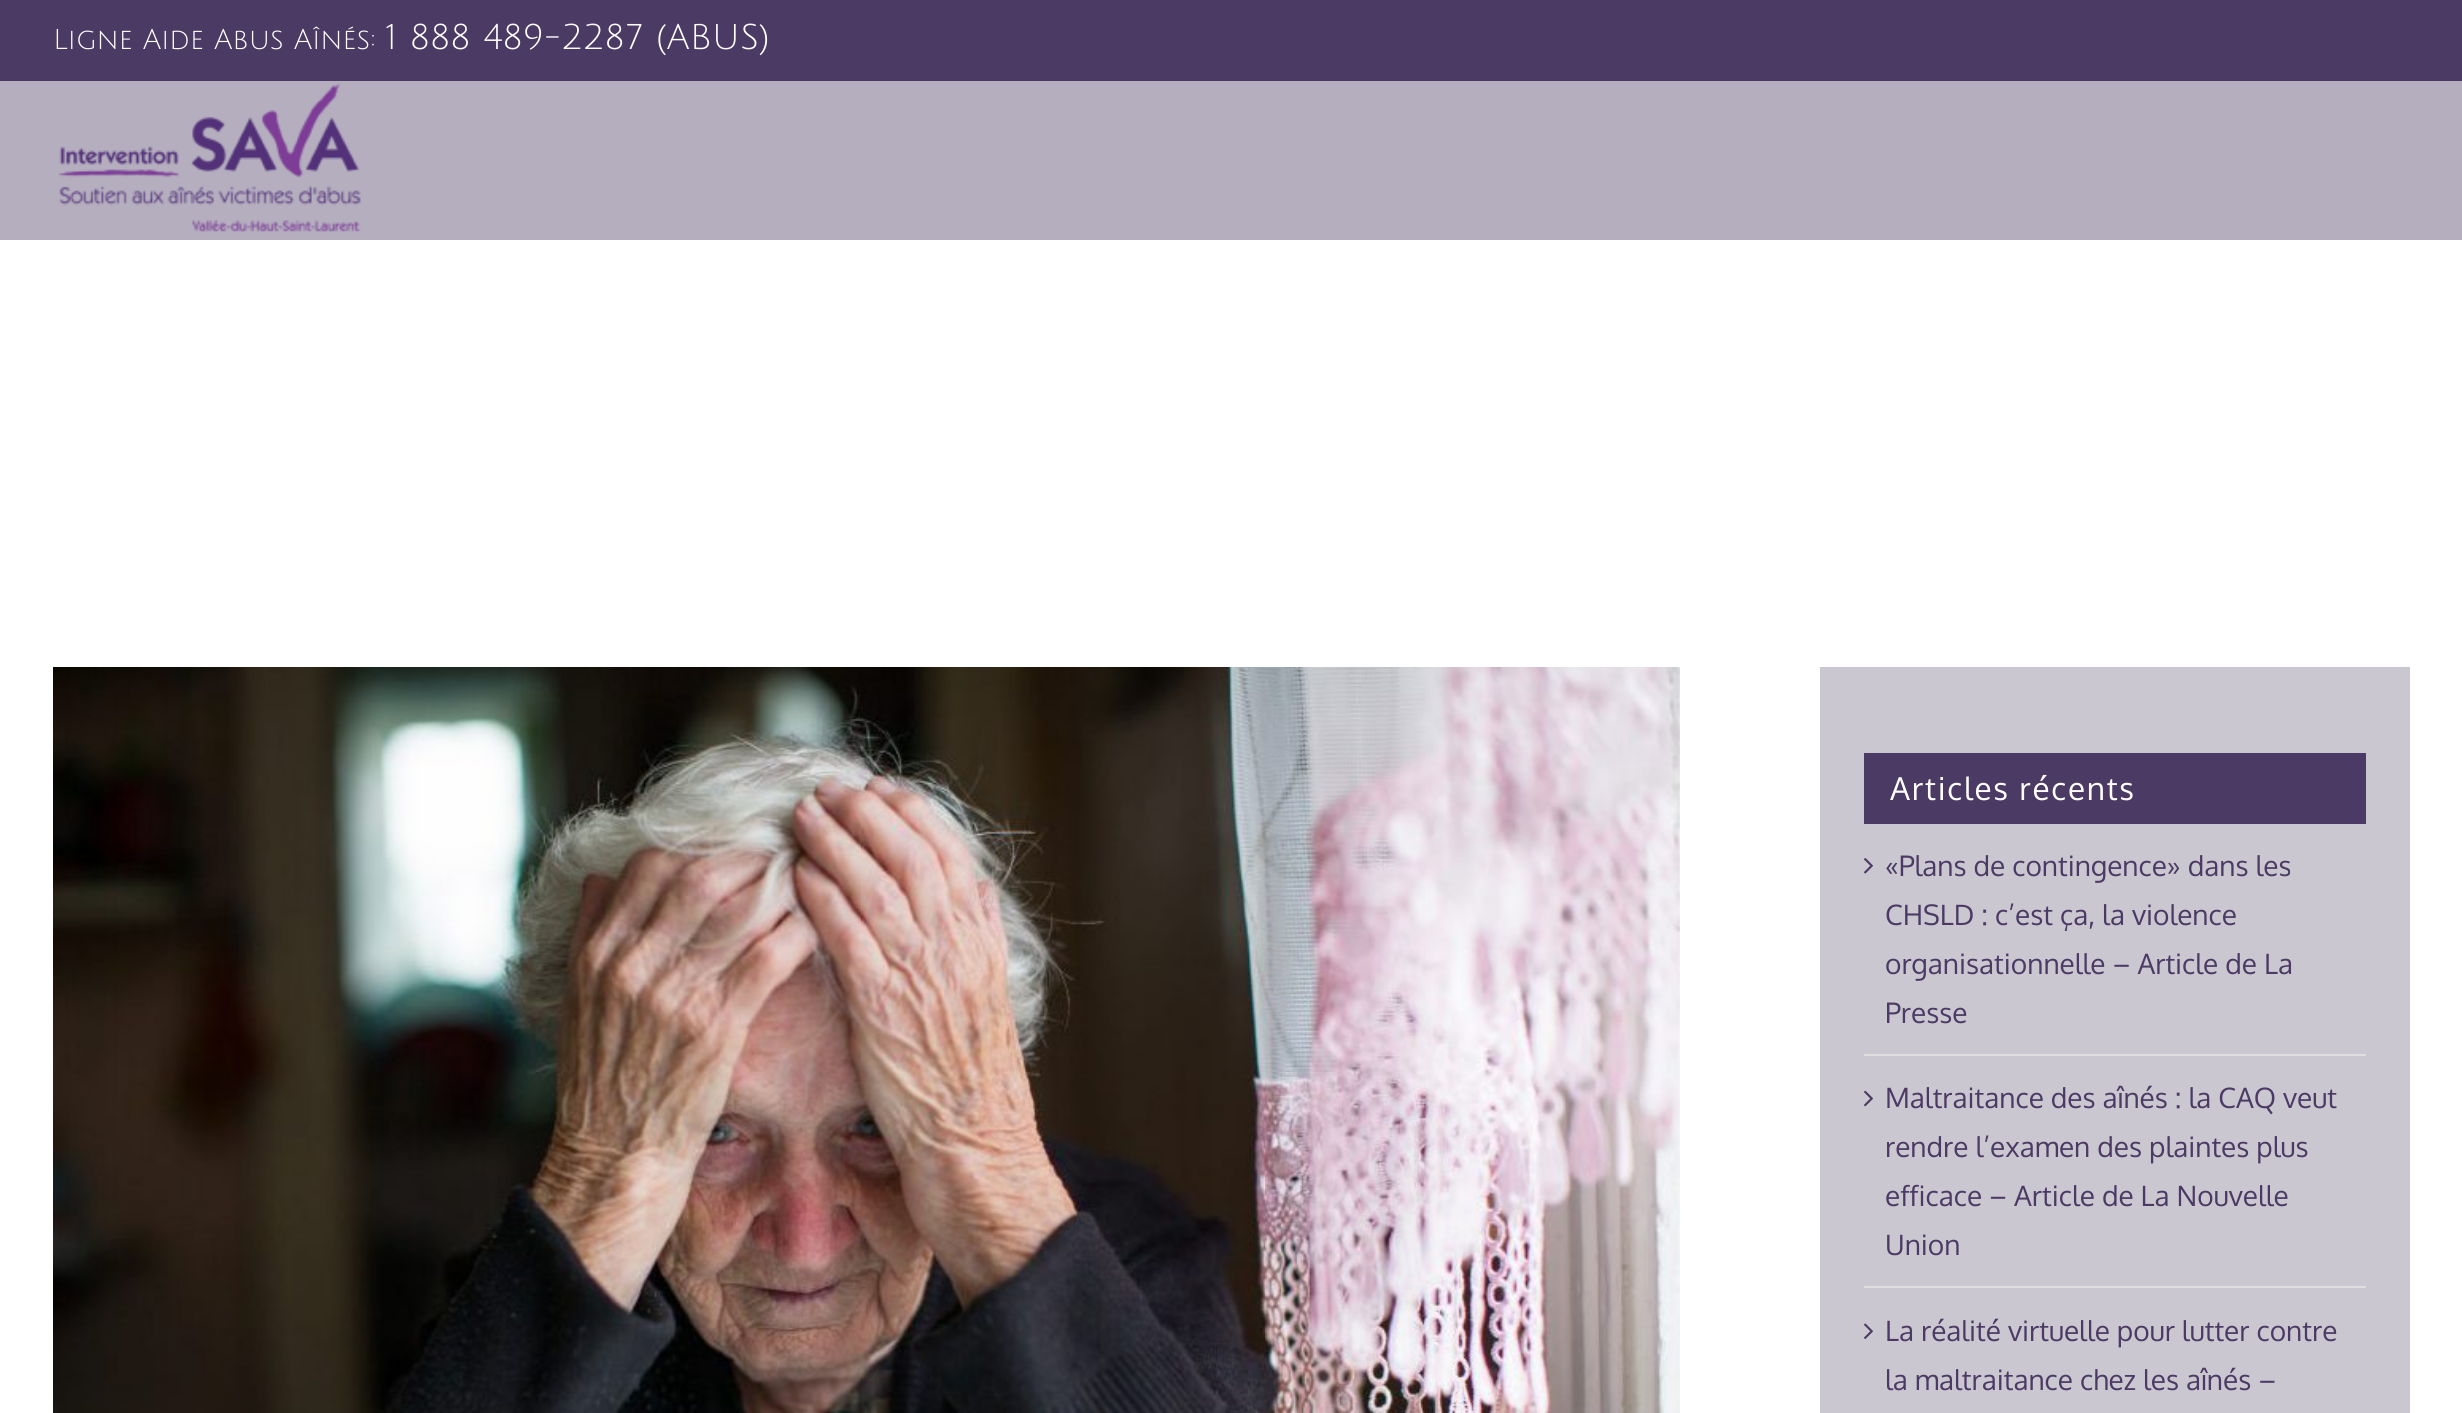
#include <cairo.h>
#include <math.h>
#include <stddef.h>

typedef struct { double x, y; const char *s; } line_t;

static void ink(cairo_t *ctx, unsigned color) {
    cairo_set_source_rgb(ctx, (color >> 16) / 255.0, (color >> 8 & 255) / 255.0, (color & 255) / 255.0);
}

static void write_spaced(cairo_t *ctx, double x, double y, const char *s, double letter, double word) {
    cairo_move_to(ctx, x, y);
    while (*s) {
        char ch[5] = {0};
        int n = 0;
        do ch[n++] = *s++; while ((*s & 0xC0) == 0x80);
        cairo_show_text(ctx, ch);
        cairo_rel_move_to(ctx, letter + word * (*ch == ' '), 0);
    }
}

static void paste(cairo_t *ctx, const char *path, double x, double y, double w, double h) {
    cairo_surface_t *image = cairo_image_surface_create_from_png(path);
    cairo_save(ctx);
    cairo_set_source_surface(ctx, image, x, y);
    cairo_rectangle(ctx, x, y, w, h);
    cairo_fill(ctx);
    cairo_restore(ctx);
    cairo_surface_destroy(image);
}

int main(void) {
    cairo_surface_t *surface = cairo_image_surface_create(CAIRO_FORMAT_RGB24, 2462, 1413);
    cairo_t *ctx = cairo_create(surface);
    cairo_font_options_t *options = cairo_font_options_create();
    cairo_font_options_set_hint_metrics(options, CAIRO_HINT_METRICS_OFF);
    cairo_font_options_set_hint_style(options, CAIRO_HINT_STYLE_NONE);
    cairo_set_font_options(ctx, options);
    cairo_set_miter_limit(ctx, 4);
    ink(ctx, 0xFFFFFF);
    cairo_paint(ctx);
    ink(ctx, 0x4B3A64);
    cairo_rectangle(ctx, 0, 0, 2462, 81);
    cairo_fill(ctx);
    cairo_select_font_face(ctx, "Julius Sans One", CAIRO_FONT_SLANT_NORMAL, CAIRO_FONT_WEIGHT_NORMAL);
    cairo_set_font_size(ctx, 28);
    ink(ctx, 0xFFFFFF);
    cairo_move_to(ctx, 53, 49);
    cairo_show_text(ctx, "Ligne Aide Abus Aînés:");
    cairo_set_font_size(ctx, 35);
    cairo_move_to(ctx, 386, 49);
    cairo_show_text(ctx, "1 888 489-2287 (ABUS)");
    ink(ctx, 0xB4AEBE);
    cairo_rectangle(ctx, 0, 81, 2462, 159);
    cairo_fill(ctx);
    paste(ctx, "media/1.png", 58, 83, 303, 149);
    paste(ctx, "media/2.png", 53, 667, 1627, 746);
    ink(ctx, 0xCBC7D1);
    cairo_rectangle(ctx, 1820, 667, 590, 746);
    cairo_fill(ctx);
    ink(ctx, 0x4B3A64);
    cairo_rectangle(ctx, 1864, 753, 502, 71);
    cairo_fill(ctx);
    cairo_select_font_face(ctx, "Oxygen", CAIRO_FONT_SLANT_NORMAL, CAIRO_FONT_WEIGHT_NORMAL);
    cairo_set_font_size(ctx, 31.5);
    ink(ctx, 0xFFFFFF);
    write_spaced(ctx, 1890, 800, "Articles récents", 1.75, 0);
    ink(ctx, 0xE0DEDE);
    cairo_rectangle(ctx, 1864, 1054, 502, 2);
    cairo_fill(ctx);
    paste(ctx, "media/3.png", 1864, 858, 9, 16);
    cairo_set_font_size(ctx, 28);
    ink(ctx, 0x4B3A64);
    {
        static const line_t items[] = {
            {1885, 876, "«Plans de contingence» dans les"},
            {1885, 925, "CHSLD : c’est ça, la violence"},
            {1885, 974, "organisationnelle – Article de La"},
            {1885, 1023, "Presse"},
        };
        for (size_t i = 0; i < sizeof items / sizeof *items; i++) {
            cairo_move_to(ctx, items[i].x, items[i].y);
            cairo_show_text(ctx, items[i].s);
        }
    }
    ink(ctx, 0xE0DEDE);
    cairo_rectangle(ctx, 1864, 1286, 502, 2);
    cairo_fill(ctx);
    paste(ctx, "media/4.png", 1864, 1090, 9, 17);
    ink(ctx, 0x4B3A64);
    {
        static const line_t items[] = {
            {1885, 1108, "Maltraitance des aînés : la CAQ veut"},
            {1885, 1157, "rendre l’examen des plaintes plus"},
            {1885, 1206, "efficace – Article de La Nouvelle"},
            {1885, 1255, "Union"},
        };
        for (size_t i = 0; i < sizeof items / sizeof *items; i++) {
            cairo_move_to(ctx, items[i].x, items[i].y);
            cairo_show_text(ctx, items[i].s);
        }
    }
    paste(ctx, "media/5.png", 1864, 1323, 9, 16);
    cairo_move_to(ctx, 1885, 1341);
    cairo_show_text(ctx, "La réalité virtuelle pour lutter contre");
    cairo_move_to(ctx, 1885, 1390);
    cairo_show_text(ctx, "la maltraitance chez les aînés –");
    cairo_surface_write_to_png(surface, "image.png");
    cairo_font_options_destroy(options);
    cairo_destroy(ctx);
    cairo_surface_destroy(surface);
    return 0;
}
